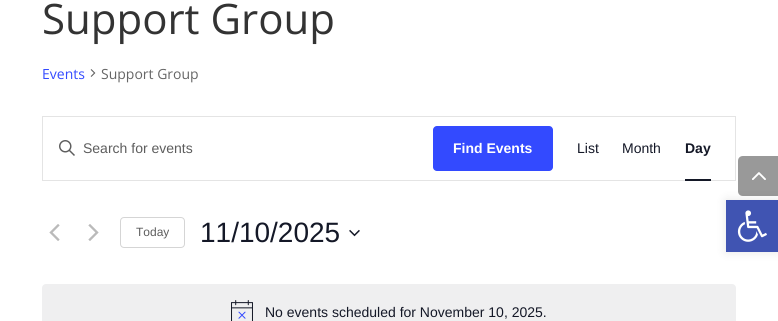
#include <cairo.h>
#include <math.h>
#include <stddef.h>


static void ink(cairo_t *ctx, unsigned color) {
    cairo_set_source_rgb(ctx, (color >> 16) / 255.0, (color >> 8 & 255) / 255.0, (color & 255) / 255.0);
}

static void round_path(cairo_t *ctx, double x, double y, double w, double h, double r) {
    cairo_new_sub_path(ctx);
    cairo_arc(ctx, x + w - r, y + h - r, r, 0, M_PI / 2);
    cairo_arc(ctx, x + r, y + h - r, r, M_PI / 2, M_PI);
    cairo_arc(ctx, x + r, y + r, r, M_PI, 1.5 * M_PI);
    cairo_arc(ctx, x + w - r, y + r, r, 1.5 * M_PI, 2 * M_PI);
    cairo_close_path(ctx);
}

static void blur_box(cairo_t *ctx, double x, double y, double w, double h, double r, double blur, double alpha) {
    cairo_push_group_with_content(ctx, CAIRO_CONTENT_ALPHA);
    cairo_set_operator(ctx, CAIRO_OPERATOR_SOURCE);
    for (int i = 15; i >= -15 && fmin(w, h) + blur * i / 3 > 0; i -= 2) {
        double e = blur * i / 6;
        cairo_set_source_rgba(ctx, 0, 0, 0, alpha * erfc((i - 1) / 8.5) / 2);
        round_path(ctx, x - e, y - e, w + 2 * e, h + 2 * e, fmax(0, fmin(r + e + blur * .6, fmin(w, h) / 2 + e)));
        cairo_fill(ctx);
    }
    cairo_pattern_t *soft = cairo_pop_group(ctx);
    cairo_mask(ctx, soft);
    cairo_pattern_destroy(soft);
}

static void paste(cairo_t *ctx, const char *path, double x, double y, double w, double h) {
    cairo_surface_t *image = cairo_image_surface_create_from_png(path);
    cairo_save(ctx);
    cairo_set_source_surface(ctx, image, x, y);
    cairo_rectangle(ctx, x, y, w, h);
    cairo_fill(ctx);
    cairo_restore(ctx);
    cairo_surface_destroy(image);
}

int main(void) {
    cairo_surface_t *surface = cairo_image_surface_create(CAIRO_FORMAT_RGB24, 778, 321);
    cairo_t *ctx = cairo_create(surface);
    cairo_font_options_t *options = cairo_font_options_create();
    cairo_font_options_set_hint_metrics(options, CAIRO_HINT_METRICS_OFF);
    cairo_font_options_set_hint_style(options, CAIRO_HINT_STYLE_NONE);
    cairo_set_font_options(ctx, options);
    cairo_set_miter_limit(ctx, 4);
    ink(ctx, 0xFFFFFF);
    cairo_paint(ctx);
    cairo_select_font_face(ctx, "Open Sans", CAIRO_FONT_SLANT_NORMAL, CAIRO_FONT_WEIGHT_NORMAL);
    cairo_set_font_size(ctx, 42);
    ink(ctx, 0x333333);
    cairo_move_to(ctx, 42, 34);
    cairo_show_text(ctx, "Support Group");
    cairo_set_font_size(ctx, 14);
    ink(ctx, 0x334AFF);
    cairo_move_to(ctx, 42, 79);
    cairo_show_text(ctx, "Events");
    paste(ctx, "media/1.png", 90, 69, 6, 8);
    ink(ctx, 0x666666);
    cairo_move_to(ctx, 101, 79);
    cairo_show_text(ctx, "Support Group");
    cairo_rectangle(ctx, 42.5, 116.5, 693, 64);
    ink(ctx, 0xE4E4E4);
    cairo_set_line_width(ctx, 1);
    cairo_stroke(ctx);
    paste(ctx, "media/2.png", 59, 140, 16, 16);
    cairo_select_font_face(ctx, "Liberation Sans", CAIRO_FONT_SLANT_NORMAL, CAIRO_FONT_WEIGHT_NORMAL);
    ink(ctx, 0x5D5D5D);
    cairo_move_to(ctx, 83, 153);
    cairo_show_text(ctx, "Search for events");
    ink(ctx, 0x334AFF);
    round_path(ctx, 433, 126, 120, 45, 4);
    cairo_fill(ctx);
    cairo_select_font_face(ctx, "Liberation Sans", CAIRO_FONT_SLANT_NORMAL, CAIRO_FONT_WEIGHT_BOLD);
    ink(ctx, 0xFFFFFF);
    cairo_move_to(ctx, 453, 153);
    cairo_show_text(ctx, "Find Events");
    cairo_select_font_face(ctx, "Liberation Sans", CAIRO_FONT_SLANT_NORMAL, CAIRO_FONT_WEIGHT_NORMAL);
    ink(ctx, 0x141827);
    cairo_move_to(ctx, 577, 153);
    cairo_show_text(ctx, "List");
    cairo_move_to(ctx, 622, 153);
    cairo_show_text(ctx, "Month");
    cairo_select_font_face(ctx, "Liberation Sans", CAIRO_FONT_SLANT_NORMAL, CAIRO_FONT_WEIGHT_BOLD);
    cairo_move_to(ctx, 685, 153);
    cairo_show_text(ctx, "Day");
    cairo_rectangle(ctx, 685, 179, 26, 2);
    cairo_fill(ctx);
    paste(ctx, "media/3.png", 49, 224, 11, 17);
    paste(ctx, "media/4.png", 88, 224, 11, 17);
    round_path(ctx, 120.5, 217.5, 64, 30, 3.5);
    ink(ctx, 0xD5D5D5);
    cairo_stroke(ctx);
    cairo_select_font_face(ctx, "Liberation Sans", CAIRO_FONT_SLANT_NORMAL, CAIRO_FONT_WEIGHT_NORMAL);
    cairo_set_font_size(ctx, 12);
    ink(ctx, 0x5D5D5D);
    cairo_move_to(ctx, 136, 236);
    cairo_show_text(ctx, "Today");
    cairo_set_font_size(ctx, 28);
    ink(ctx, 0x141827);
    cairo_move_to(ctx, 200, 242);
    cairo_show_text(ctx, "11/10/2025");
    paste(ctx, "media/5.png", 349, 229, 11, 8);
    ink(ctx, 0xEFEFF0);
    round_path(ctx, 42, 284, 694, 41, 4);
    cairo_fill(ctx);
    paste(ctx, "media/6.png", 231, 300, 22, 21);
    cairo_set_font_size(ctx, 14);
    ink(ctx, 0x141827);
    cairo_move_to(ctx, 265, 317);
    cairo_show_text(ctx, "No events scheduled for November 10, 2025.");
    ink(ctx, 0x000000);
    blur_box(ctx, 726, 200, 52, 52, 0, 5, 0.1);
    cairo_set_source_rgba(ctx, 0, 0, 0, 0.4);
    cairo_new_path(ctx);
    cairo_move_to(ctx, 743, 156);
    cairo_line_to(ctx, 778, 156);
    cairo_line_to(ctx, 778, 196);
    cairo_line_to(ctx, 743, 196);
    cairo_curve_to(ctx, 740, 196, 738, 194, 738, 191);
    cairo_line_to(ctx, 738, 161);
    cairo_curve_to(ctx, 738, 158, 740, 156, 743, 156);
    cairo_close_path(ctx);
    cairo_fill(ctx);
    paste(ctx, "media/7.png", 752, 172, 14, 8);
    ink(ctx, 0x4054B2);
    cairo_rectangle(ctx, 726, 200, 52, 52);
    cairo_fill(ctx);
    paste(ctx, "media/8.png", 737, 210, 30, 32);
    cairo_surface_write_to_png(surface, "image.png");
    cairo_font_options_destroy(options);
    cairo_destroy(ctx);
    cairo_surface_destroy(surface);
    return 0;
}
